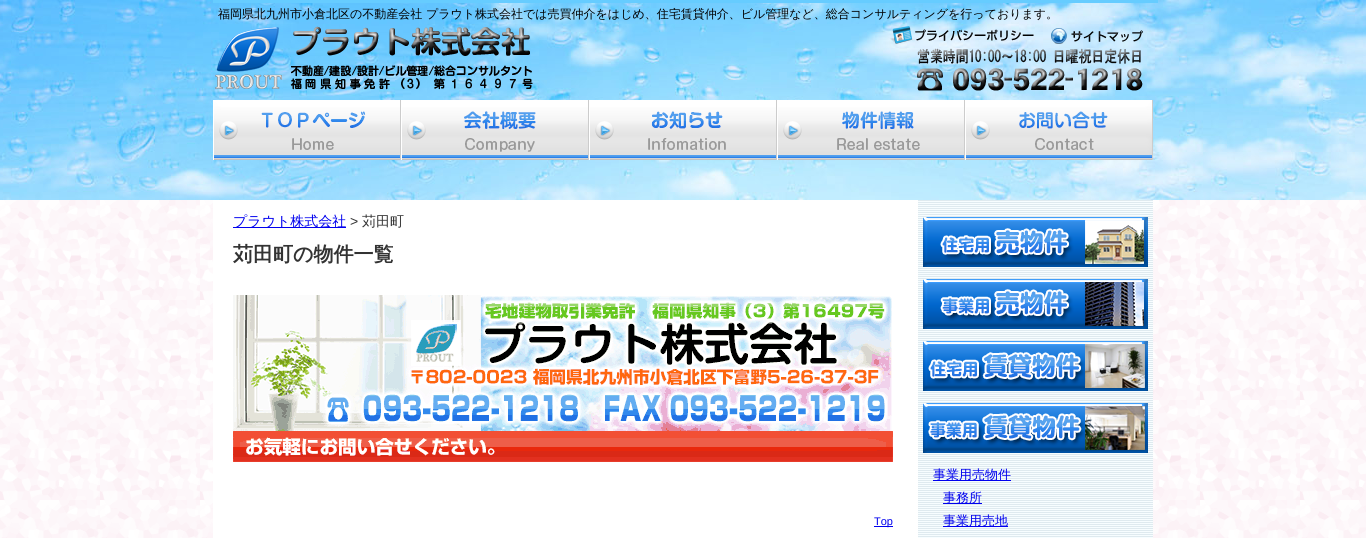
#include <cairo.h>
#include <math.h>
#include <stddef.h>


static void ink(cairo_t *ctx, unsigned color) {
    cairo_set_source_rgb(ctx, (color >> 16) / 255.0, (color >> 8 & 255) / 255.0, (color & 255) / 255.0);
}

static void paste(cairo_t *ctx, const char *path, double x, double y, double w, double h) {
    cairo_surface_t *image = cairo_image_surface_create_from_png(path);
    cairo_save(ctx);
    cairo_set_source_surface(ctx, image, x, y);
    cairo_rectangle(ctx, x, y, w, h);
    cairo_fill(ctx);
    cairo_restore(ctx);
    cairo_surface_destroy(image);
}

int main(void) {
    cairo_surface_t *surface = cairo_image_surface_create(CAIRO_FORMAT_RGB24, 1366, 538);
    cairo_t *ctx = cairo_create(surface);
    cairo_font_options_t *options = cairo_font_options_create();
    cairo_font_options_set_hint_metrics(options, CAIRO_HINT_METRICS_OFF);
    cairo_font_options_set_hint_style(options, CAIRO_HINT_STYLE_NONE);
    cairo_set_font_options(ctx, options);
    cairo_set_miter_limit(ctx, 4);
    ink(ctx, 0xFFFFFF);
    cairo_paint(ctx);
    paste(ctx, "media/1.png", 0, 200, 1366, 338);
    paste(ctx, "media/2.png", 0, 0, 1366, 200);
    ink(ctx, 0x66CCFF);
    cairo_rectangle(ctx, 213, 0, 945, 3);
    cairo_fill(ctx);
    cairo_select_font_face(ctx, "WenQuanYi Zen Hei Medium", CAIRO_FONT_SLANT_NORMAL, CAIRO_FONT_WEIGHT_NORMAL);
    cairo_set_font_size(ctx, 12);
    ink(ctx, 0x000000);
    cairo_move_to(ctx, 218, 18);
    cairo_show_text(ctx, "福岡県北九州市小倉北区の不動産会社 プラウト株式会社では売買仲介をはじめ、住宅賃貸仲介、ビル管理など、総合コンサルティングを行っております。");
    paste(ctx, "media/3.png", 215, 26, 318, 64);
    paste(ctx, "media/4.png", 890, 26, 144, 18);
    paste(ctx, "media/5.png", 1051, 28, 92, 16);
    paste(ctx, "media/6.png", 917, 48, 226, 43);
    paste(ctx, "media/7.png", 213, 100, 940, 60);
    ink(ctx, 0xFFFFFF);
    cairo_rectangle(ctx, 213, 200, 705, 338);
    cairo_fill(ctx);
    paste(ctx, "media/8.png", 918, 200, 235, 338);
    ink(ctx, 0x0000EE);
    cairo_rectangle(ctx, 233, 227, 113, 1);
    cairo_fill(ctx);
    cairo_set_font_size(ctx, 14);
    cairo_move_to(ctx, 233, 226);
    cairo_show_text(ctx, "プラウト株式会社");
    cairo_select_font_face(ctx, "Liberation Sans", CAIRO_FONT_SLANT_NORMAL, CAIRO_FONT_WEIGHT_NORMAL);
    ink(ctx, 0x333333);
    cairo_move_to(ctx, 350, 226);
    cairo_show_text(ctx, ">");
    cairo_select_font_face(ctx, "WenQuanYi Zen Hei Medium", CAIRO_FONT_SLANT_NORMAL, CAIRO_FONT_WEIGHT_NORMAL);
    cairo_move_to(ctx, 362, 226);
    cairo_show_text(ctx, "苅田町");
    cairo_select_font_face(ctx, "WenQuanYi Zen Hei", CAIRO_FONT_SLANT_NORMAL, CAIRO_FONT_WEIGHT_BOLD);
    cairo_set_font_size(ctx, 20);
    cairo_move_to(ctx, 233, 261);
    cairo_show_text(ctx, "苅田町の物件一覧");
    paste(ctx, "media/9.png", 233, 295, 660, 167);
    ink(ctx, 0x0000EE);
    cairo_rectangle(ctx, 874, 526, 19, 1);
    cairo_fill(ctx);
    cairo_select_font_face(ctx, "Liberation Sans", CAIRO_FONT_SLANT_NORMAL, CAIRO_FONT_WEIGHT_NORMAL);
    cairo_set_font_size(ctx, 11);
    cairo_move_to(ctx, 874, 525);
    cairo_show_text(ctx, "Top");
    paste(ctx, "media/10.png", 923, 217, 225, 50);
    paste(ctx, "media/11.png", 923, 279, 225, 50);
    paste(ctx, "media/12.png", 923, 341, 225, 50);
    paste(ctx, "media/13.png", 923, 403, 225, 50);
    cairo_rectangle(ctx, 933, 480, 78, 1);
    cairo_fill(ctx);
    cairo_select_font_face(ctx, "WenQuanYi Zen Hei Medium", CAIRO_FONT_SLANT_NORMAL, CAIRO_FONT_WEIGHT_NORMAL);
    cairo_set_font_size(ctx, 13);
    cairo_move_to(ctx, 933, 479);
    cairo_show_text(ctx, "事業用売物件");
    cairo_rectangle(ctx, 943, 503, 39, 1);
    cairo_fill(ctx);
    cairo_move_to(ctx, 943, 502);
    cairo_show_text(ctx, "事務所");
    cairo_rectangle(ctx, 943, 526, 65, 1);
    cairo_fill(ctx);
    cairo_move_to(ctx, 943, 525);
    cairo_show_text(ctx, "事業用売地");
    cairo_surface_write_to_png(surface, "image.png");
    cairo_font_options_destroy(options);
    cairo_destroy(ctx);
    cairo_surface_destroy(surface);
    return 0;
}
